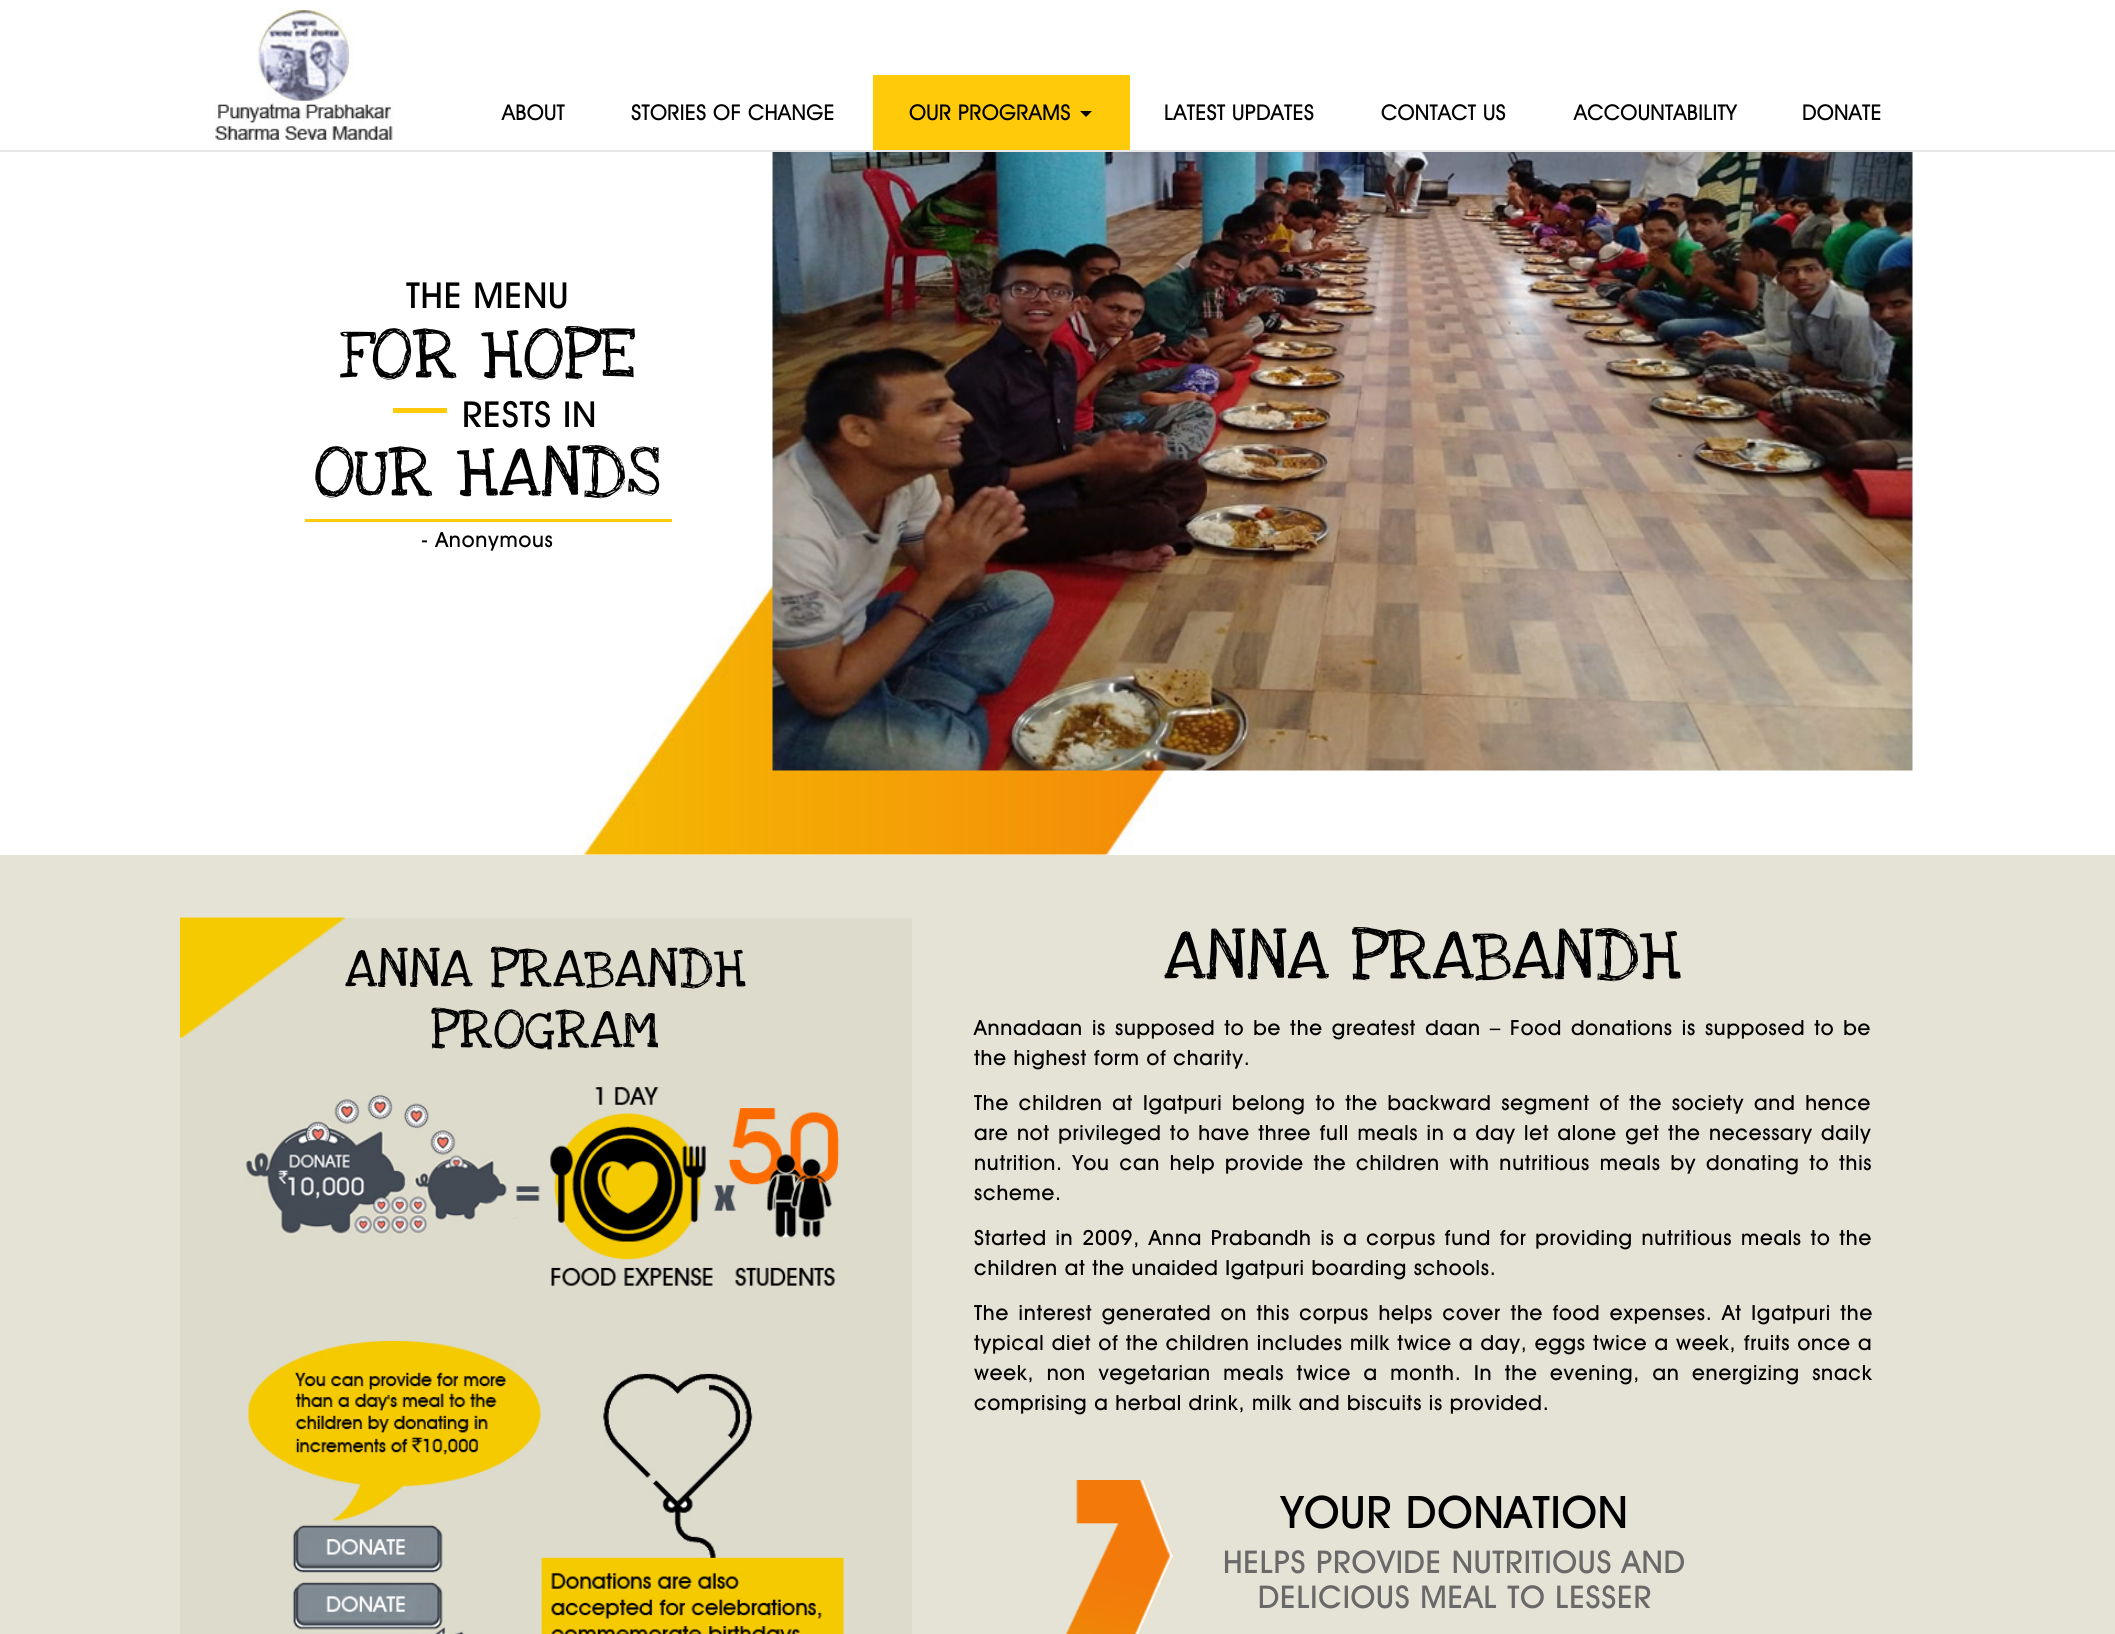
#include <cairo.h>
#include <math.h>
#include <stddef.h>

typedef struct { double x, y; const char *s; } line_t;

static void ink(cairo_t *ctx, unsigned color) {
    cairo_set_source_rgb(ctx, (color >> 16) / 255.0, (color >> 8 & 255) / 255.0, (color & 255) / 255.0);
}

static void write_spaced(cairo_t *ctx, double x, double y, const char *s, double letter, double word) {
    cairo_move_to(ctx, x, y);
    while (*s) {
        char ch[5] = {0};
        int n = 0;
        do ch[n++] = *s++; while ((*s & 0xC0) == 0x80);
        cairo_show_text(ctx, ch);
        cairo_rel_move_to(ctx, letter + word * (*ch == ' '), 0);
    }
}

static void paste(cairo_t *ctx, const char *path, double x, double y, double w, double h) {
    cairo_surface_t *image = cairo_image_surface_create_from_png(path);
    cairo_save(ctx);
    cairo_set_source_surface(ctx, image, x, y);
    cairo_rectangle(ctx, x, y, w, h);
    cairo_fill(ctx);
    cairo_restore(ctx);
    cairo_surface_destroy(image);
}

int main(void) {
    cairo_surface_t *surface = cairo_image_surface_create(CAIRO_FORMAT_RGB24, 2115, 1634);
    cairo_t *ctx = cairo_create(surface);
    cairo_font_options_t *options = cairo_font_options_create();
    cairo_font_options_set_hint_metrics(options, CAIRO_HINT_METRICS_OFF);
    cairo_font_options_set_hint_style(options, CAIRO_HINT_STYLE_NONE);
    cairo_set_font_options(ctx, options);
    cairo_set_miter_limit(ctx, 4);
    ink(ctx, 0xFFFFFF);
    cairo_paint(ctx);
    ink(ctx, 0xE7E7E7);
    cairo_rectangle(ctx, 0, 150, 2115, 2);
    cairo_fill(ctx);
    paste(ctx, "media/1.png", 213, 7, 182, 134);
    cairo_select_font_face(ctx, "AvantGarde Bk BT", CAIRO_FONT_SLANT_NORMAL, CAIRO_FONT_WEIGHT_BOLD);
    cairo_set_font_size(ctx, 21);
    ink(ctx, 0x000000);
    write_spaced(ctx, 502, 120, "ABOUT", 0.75, 0);
    write_spaced(ctx, 631, 120, "STORIES OF CHANGE", 0.75, 0);
    ink(ctx, 0xFFCA0A);
    cairo_rectangle(ctx, 873, 75, 257, 75);
    cairo_fill(ctx);
    ink(ctx, 0x000000);
    write_spaced(ctx, 909, 120, "OUR PROGRAMS", 0.75, 0);
    cairo_new_path(ctx);
    cairo_move_to(ctx, 1080, 111);
    cairo_line_to(ctx, 1092, 111);
    cairo_line_to(ctx, 1086, 117);
    cairo_close_path(ctx);
    cairo_fill(ctx);
    {
        static const line_t items[] = {
            {1164, 120, "LATEST UPDATES"},
            {1381, 120, "CONTACT US"},
            {1574, 120, "ACCOUNTABILITY"},
            {1802, 120, "DONATE"},
        };
        for (size_t i = 0; i < sizeof items / sizeof *items; i++) {
            write_spaced(ctx, items[i].x, items[i].y, items[i].s, 0.75, 0);
        }
    }
    paste(ctx, "media/2.png", 572, 152, 1133, 703);
    cairo_select_font_face(ctx, "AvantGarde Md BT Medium", CAIRO_FONT_SLANT_NORMAL, CAIRO_FONT_WEIGHT_NORMAL);
    cairo_set_font_size(ctx, 36);
    write_spaced(ctx, 406, 308, "THE MENU", 0.75, 0);
    cairo_select_font_face(ctx, "Love Ya Like A Sister", CAIRO_FONT_SLANT_NORMAL, CAIRO_FONT_WEIGHT_NORMAL);
    cairo_set_font_size(ctx, 72);
    write_spaced(ctx, 339, 377, "FOR HOPE", 0.75, 0);
    ink(ctx, 0xFFCA0A);
    cairo_rectangle(ctx, 393, 408, 54, 5);
    cairo_fill(ctx);
    cairo_select_font_face(ctx, "AvantGarde Md BT Medium", CAIRO_FONT_SLANT_NORMAL, CAIRO_FONT_WEIGHT_NORMAL);
    cairo_set_font_size(ctx, 36);
    ink(ctx, 0x000000);
    write_spaced(ctx, 462, 427, "RESTS IN", 0.75, 0);
    cairo_select_font_face(ctx, "Love Ya Like A Sister", CAIRO_FONT_SLANT_NORMAL, CAIRO_FONT_WEIGHT_NORMAL);
    cairo_set_font_size(ctx, 72);
    write_spaced(ctx, 314, 495, "OUR HANDS", 0.75, 0);
    ink(ctx, 0xFFCA0A);
    cairo_rectangle(ctx, 305, 519, 367, 3);
    cairo_fill(ctx);
    cairo_select_font_face(ctx, "AvantGarde Md BT Medium", CAIRO_FONT_SLANT_NORMAL, CAIRO_FONT_WEIGHT_NORMAL);
    cairo_set_font_size(ctx, 21);
    ink(ctx, 0x000000);
    write_spaced(ctx, 421, 547, "- Anonymous", 0.75, 0);
    paste(ctx, "media/3.png", 772, 152, 1141, 619);
    ink(ctx, 0xE5E3D5);
    cairo_rectangle(ctx, 0, 855, 2115, 779);
    cairo_fill(ctx);
    ink(ctx, 0xDDDBCC);
    cairo_rectangle(ctx, 180, 918, 732, 716);
    cairo_fill(ctx);
    paste(ctx, "media/4.png", 180, 917, 165, 121);
    cairo_select_font_face(ctx, "Love Ya Like A Sister", CAIRO_FONT_SLANT_NORMAL, CAIRO_FONT_WEIGHT_NORMAL);
    cairo_set_font_size(ctx, 55.5);
    ink(ctx, 0x000000);
    write_spaced(ctx, 345, 986, "ANNA PRABANDH", 0.75, 0);
    write_spaced(ctx, 431, 1047, "PROGRAM", 0.75, 0);
    paste(ctx, "media/5.png", 245, 1087, 595, 199);
    paste(ctx, "media/6.png", 248, 1340, 596, 294);
    cairo_set_font_size(ctx, 72);
    write_spaced(ctx, 1164, 978, "ANNA PRABANDH", 0.75, 0);
    cairo_select_font_face(ctx, "AvantGarde Md BT Medium", CAIRO_FONT_SLANT_NORMAL, CAIRO_FONT_WEIGHT_NORMAL);
    cairo_set_font_size(ctx, 21);
    write_spaced(ctx, 974, 1035, "Annadaan is supposed to be the greatest daan – Food donations is supposed to be", 0.75, 2.25);
    write_spaced(ctx, 974, 1065, "the highest form of charity.", 0.75, 0);
    write_spaced(ctx, 974, 1110, "The children at Igatpuri belong to the backward segment of the society and hence", 0.75, 3);
    write_spaced(ctx, 974, 1140, "are not privileged to have three full meals in a day let alone get the necessary daily", 0.75, 1.6);
    write_spaced(ctx, 974, 1170, "nutrition. You can help provide the children with nutritious meals by donating to this", 0.75, 3);
    write_spaced(ctx, 974, 1200, "scheme.", 0.75, 0);
    write_spaced(ctx, 974, 1245, "Started in 2009, Anna Prabandh is a corpus fund for providing nutritious meals to the", 0.75, 2);
    write_spaced(ctx, 974, 1275, "children at the unaided Igatpuri boarding schools.", 0.75, 0);
    write_spaced(ctx, 974, 1320, "The interest generated on this corpus helps cover the food expenses. At Igatpuri the", 0.75, 2.75);
    write_spaced(ctx, 974, 1350, "typical diet of the children includes milk twice a day, eggs twice a week, fruits once a", 0.75, 0.5);
    write_spaced(ctx, 974, 1380, "week, non vegetarian meals twice a month. In the evening, an energizing snack", 0.75, 5.75);
    write_spaced(ctx, 974, 1410, "comprising a herbal drink, milk and biscuits is provided.", 0.75, 0);
    paste(ctx, "media/7.png", 1066, 1480, 107, 154);
    cairo_set_font_size(ctx, 45);
    write_spaced(ctx, 1281, 1528, "YOUR DONATION", 0.75, 0);
    cairo_set_font_size(ctx, 31.5);
    ink(ctx, 0x6A6969);
    write_spaced(ctx, 1223, 1573, "HELPS PROVIDE NUTRITIOUS AND", 0.75, 0);
    write_spaced(ctx, 1258, 1608, "DELICIOUS MEAL TO LESSER", 0.75, 0);
    cairo_surface_write_to_png(surface, "image.png");
    cairo_font_options_destroy(options);
    cairo_destroy(ctx);
    cairo_surface_destroy(surface);
    return 0;
}
